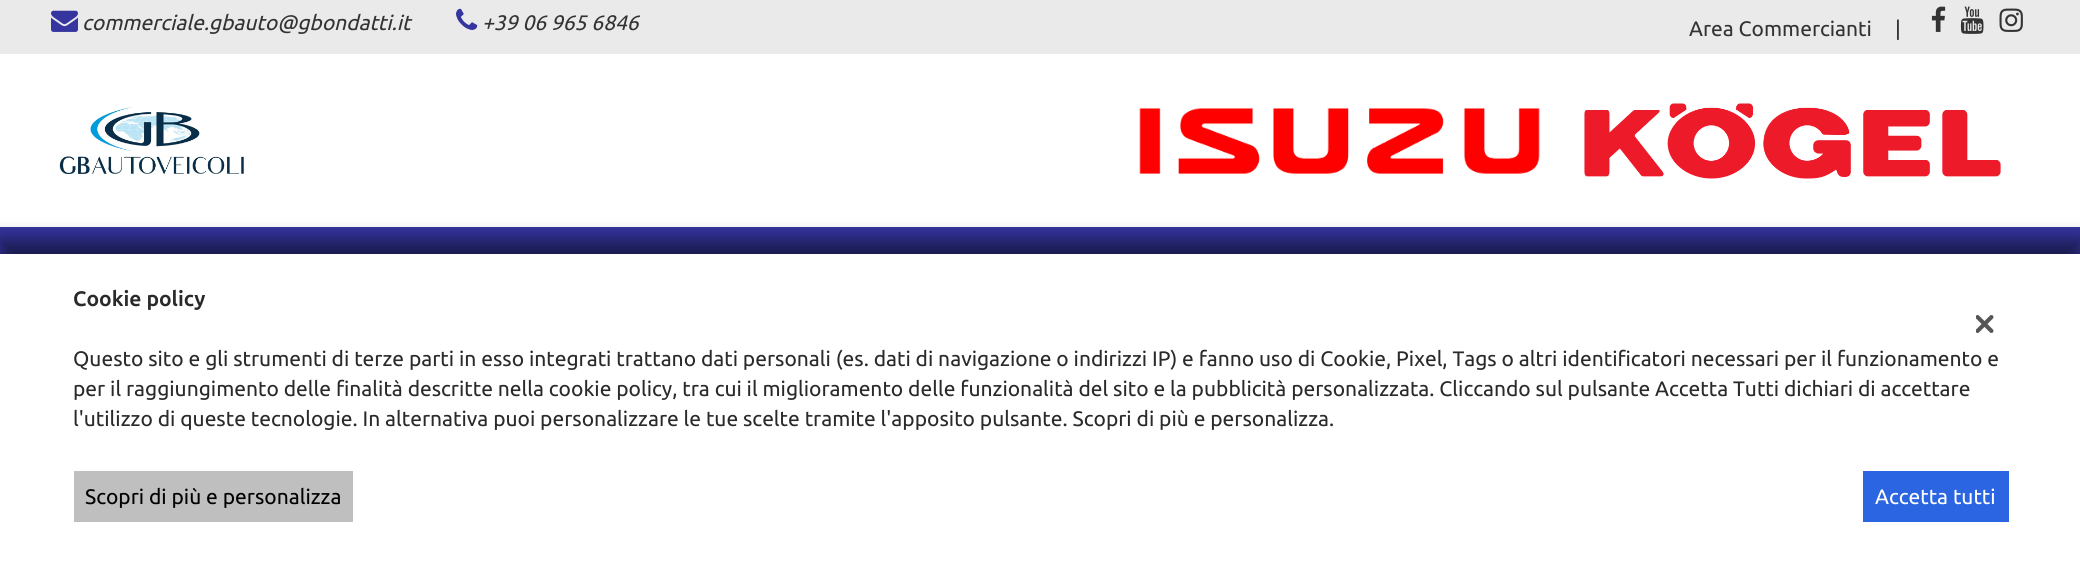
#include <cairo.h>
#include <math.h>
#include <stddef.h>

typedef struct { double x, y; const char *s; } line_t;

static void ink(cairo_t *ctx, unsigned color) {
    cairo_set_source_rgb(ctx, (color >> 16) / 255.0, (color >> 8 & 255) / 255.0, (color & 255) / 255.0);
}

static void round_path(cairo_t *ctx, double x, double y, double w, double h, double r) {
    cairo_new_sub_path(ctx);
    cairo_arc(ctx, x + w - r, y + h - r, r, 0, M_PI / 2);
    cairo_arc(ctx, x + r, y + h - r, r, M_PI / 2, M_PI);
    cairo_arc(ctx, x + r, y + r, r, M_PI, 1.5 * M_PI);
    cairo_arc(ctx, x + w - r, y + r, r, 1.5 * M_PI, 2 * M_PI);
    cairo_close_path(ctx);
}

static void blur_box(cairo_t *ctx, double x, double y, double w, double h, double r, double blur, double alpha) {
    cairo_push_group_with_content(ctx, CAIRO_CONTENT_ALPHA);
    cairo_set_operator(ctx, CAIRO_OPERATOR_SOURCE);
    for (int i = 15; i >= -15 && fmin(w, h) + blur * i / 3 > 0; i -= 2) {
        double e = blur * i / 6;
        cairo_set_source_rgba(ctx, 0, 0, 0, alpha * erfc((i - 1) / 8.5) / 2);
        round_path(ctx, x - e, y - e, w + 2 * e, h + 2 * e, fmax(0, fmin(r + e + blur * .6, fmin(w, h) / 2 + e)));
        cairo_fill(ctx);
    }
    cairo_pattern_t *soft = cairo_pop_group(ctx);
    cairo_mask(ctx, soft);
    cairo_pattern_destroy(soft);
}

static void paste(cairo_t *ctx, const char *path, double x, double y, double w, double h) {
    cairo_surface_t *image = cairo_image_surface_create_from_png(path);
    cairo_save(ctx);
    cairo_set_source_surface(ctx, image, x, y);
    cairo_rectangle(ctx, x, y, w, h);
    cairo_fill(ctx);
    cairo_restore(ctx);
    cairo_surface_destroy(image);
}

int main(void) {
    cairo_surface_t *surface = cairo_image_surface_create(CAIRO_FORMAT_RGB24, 2080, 567);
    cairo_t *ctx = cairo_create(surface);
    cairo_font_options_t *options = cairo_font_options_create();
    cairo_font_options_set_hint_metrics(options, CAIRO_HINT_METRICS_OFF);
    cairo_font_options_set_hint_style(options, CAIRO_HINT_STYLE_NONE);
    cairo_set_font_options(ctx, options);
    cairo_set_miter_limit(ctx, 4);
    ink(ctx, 0xFFFFFF);
    cairo_paint(ctx);
    ink(ctx, 0xEAEAEA);
    cairo_rectangle(ctx, 0, 0, 2080, 54);
    cairo_fill(ctx);
    paste(ctx, "media/1.png", 51, 10, 27, 22);
    cairo_select_font_face(ctx, "Ubuntu", CAIRO_FONT_SLANT_ITALIC, CAIRO_FONT_WEIGHT_NORMAL);
    cairo_set_font_size(ctx, 21);
    ink(ctx, 0x333333);
    cairo_move_to(ctx, 82, 30);
    cairo_show_text(ctx, "commerciale.gbauto@gbondatti.it");
    paste(ctx, "media/2.png", 456, 8, 22, 22);
    cairo_move_to(ctx, 482, 30);
    cairo_show_text(ctx, "+39 06 965 6846");
    cairo_select_font_face(ctx, "Ubuntu", CAIRO_FONT_SLANT_NORMAL, CAIRO_FONT_WEIGHT_NORMAL);
    cairo_move_to(ctx, 1689, 36);
    cairo_show_text(ctx, "Area Commercianti");
    cairo_move_to(ctx, 1895, 36);
    cairo_show_text(ctx, "|");
    paste(ctx, "media/3.png", 1931, 6, 15, 26);
    paste(ctx, "media/4.png", 1960, 6, 24, 28);
    paste(ctx, "media/5.png", 1999, 8, 24, 24);
    paste(ctx, "media/6.png", 59, 107, 185, 68);
    paste(ctx, "media/7.png", 1139, 108, 401, 66);
    paste(ctx, "media/8.png", 1584, 103, 417, 76);
    ink(ctx, 0x3535A0);
    cairo_rectangle(ctx, 0, 227, 2080, 27);
    cairo_fill(ctx);
    ink(ctx, 0x000000);
    blur_box(ctx, 0, 239, 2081, 313, 0, 9, 0.5);
    ink(ctx, 0xFFFFFF);
    cairo_rectangle(ctx, 0, 254, 2080, 313);
    cairo_fill(ctx);
    cairo_select_font_face(ctx, "Ubuntu", CAIRO_FONT_SLANT_NORMAL, CAIRO_FONT_WEIGHT_BOLD);
    ink(ctx, 0x2B2929);
    cairo_move_to(ctx, 73, 306);
    cairo_show_text(ctx, "Cookie policy");
    cairo_select_font_face(ctx, "Ubuntu", CAIRO_FONT_SLANT_NORMAL, CAIRO_FONT_WEIGHT_NORMAL);
    {
        static const line_t items[] = {
            {73, 366, "Questo sito e gli strumenti di terze parti in esso integrati trattano dati personali (es. dati di navigazione o indirizzi IP) e fanno uso di Cookie, Pixel, Tags o altri identificatori necessari per il funzionamento e"},
            {73, 396, "per il raggiungimento delle finalità descritte nella cookie policy, tra cui il miglioramento delle funzionalità del sito e la pubblicità personalizzata. Cliccando sul pulsante Accetta Tutti dichiari di accettare"},
            {73, 426, "l'utilizzo di queste tecnologie. In alternativa puoi personalizzare le tue scelte tramite l'apposito pulsante. Scopri di più e personalizza."},
        };
        for (size_t i = 0; i < sizeof items / sizeof *items; i++) {
            cairo_move_to(ctx, items[i].x, items[i].y);
            cairo_show_text(ctx, items[i].s);
        }
    }
    ink(ctx, 0xBFBFBF);
    cairo_rectangle(ctx, 74, 471, 279, 51);
    cairo_fill(ctx);
    ink(ctx, 0x000000);
    cairo_move_to(ctx, 85, 504);
    cairo_show_text(ctx, "Scopri di più e personalizza");
    ink(ctx, 0x2C65E1);
    cairo_rectangle(ctx, 1863, 471, 146, 51);
    cairo_fill(ctx);
    ink(ctx, 0xFFFFFF);
    cairo_move_to(ctx, 1875, 504);
    cairo_show_text(ctx, "Accetta tutti");
    paste(ctx, "media/9.png", 1976, 315, 18, 18);
    cairo_surface_write_to_png(surface, "image.png");
    cairo_font_options_destroy(options);
    cairo_destroy(ctx);
    cairo_surface_destroy(surface);
    return 0;
}
